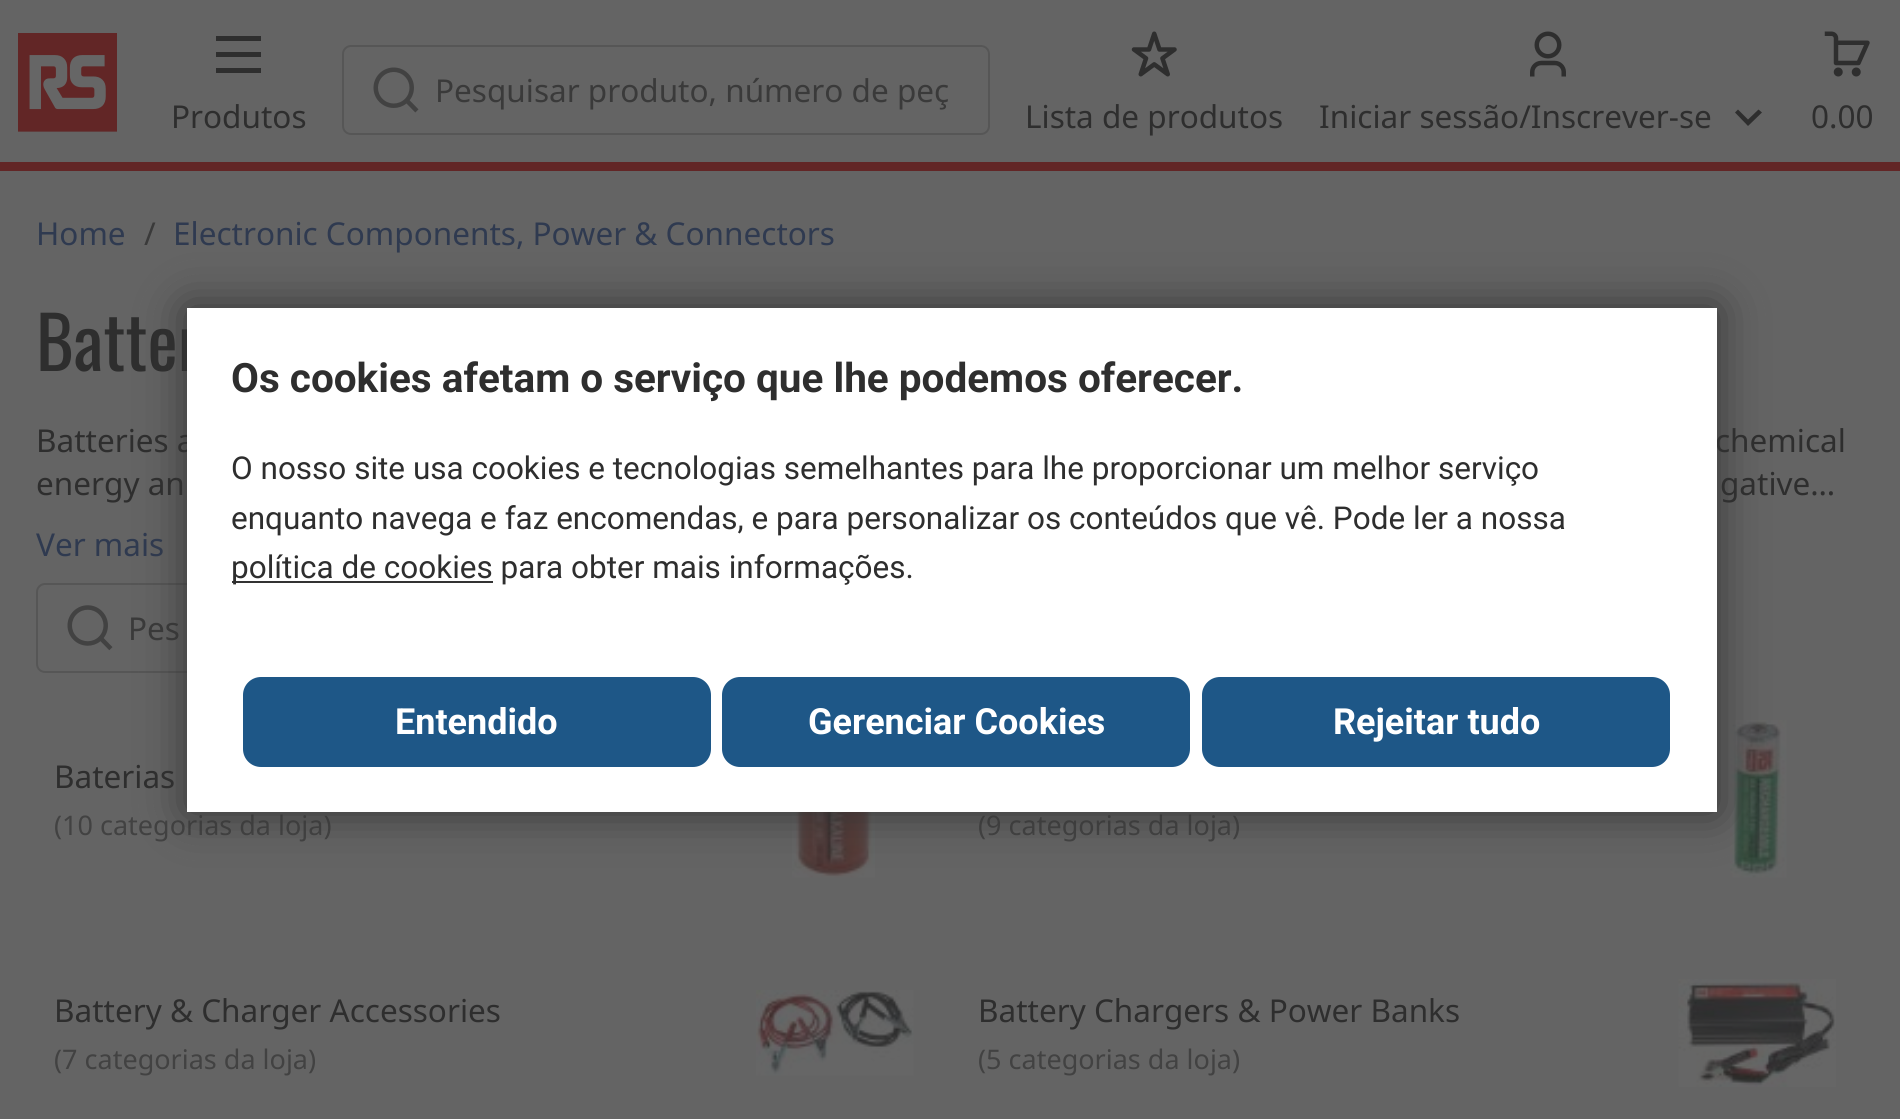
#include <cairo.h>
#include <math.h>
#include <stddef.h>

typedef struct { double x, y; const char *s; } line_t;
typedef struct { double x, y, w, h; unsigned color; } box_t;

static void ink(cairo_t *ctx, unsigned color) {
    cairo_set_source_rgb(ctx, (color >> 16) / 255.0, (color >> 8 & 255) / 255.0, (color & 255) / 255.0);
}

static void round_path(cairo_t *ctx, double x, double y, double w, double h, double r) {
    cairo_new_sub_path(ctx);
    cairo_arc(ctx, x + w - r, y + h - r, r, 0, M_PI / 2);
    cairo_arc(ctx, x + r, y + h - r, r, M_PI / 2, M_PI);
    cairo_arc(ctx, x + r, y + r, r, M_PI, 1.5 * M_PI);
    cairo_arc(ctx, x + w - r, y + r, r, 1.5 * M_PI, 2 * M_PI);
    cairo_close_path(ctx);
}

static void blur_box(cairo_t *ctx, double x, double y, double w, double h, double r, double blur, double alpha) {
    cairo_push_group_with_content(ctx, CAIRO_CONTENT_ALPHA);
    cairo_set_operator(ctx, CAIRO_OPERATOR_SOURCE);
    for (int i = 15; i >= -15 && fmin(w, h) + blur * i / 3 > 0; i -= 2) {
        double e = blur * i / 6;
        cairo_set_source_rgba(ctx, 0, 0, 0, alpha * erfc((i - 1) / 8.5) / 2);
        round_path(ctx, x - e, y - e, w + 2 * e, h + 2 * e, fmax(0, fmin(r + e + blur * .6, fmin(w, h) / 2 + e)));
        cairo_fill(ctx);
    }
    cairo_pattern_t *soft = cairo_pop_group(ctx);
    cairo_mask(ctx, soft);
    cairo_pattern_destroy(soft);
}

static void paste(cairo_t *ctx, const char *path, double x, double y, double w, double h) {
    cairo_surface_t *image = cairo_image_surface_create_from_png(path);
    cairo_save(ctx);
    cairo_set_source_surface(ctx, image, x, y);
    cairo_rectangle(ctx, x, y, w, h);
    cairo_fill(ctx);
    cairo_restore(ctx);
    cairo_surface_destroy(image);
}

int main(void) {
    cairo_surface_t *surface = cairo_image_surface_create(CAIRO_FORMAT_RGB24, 1900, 1119);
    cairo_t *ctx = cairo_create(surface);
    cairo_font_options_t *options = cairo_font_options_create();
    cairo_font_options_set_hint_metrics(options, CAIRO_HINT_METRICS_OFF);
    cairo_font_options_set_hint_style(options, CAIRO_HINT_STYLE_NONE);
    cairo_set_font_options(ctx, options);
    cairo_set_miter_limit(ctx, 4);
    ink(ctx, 0x646464);
    cairo_paint(ctx);
    ink(ctx, 0x622626);
    cairo_rectangle(ctx, 0, 162, 1900, 9);
    cairo_fill(ctx);
    paste(ctx, "media/1.png", 18, 33, 99, 99);
    round_path(ctx, 343, 46, 646, 88, 8);
    ink(ctx, 0x565656);
    cairo_stroke(ctx);
    paste(ctx, "media/2.png", 373, 67, 46, 46);
    cairo_select_font_face(ctx, "Noto Sans", CAIRO_FONT_SLANT_NORMAL, CAIRO_FONT_WEIGHT_NORMAL);
    cairo_set_font_size(ctx, 31.5);
    ink(ctx, 0x3A3A3A);
    cairo_move_to(ctx, 435, 102);
    cairo_show_text(ctx, "Pesquisar produto, número de peç");
    {
        static const box_t items[] = {
            {216, 36, 45, 5, 0x2E2E2E},
            {216, 52, 45, 5, 0x2E2E2E},
            {216, 68, 45, 5, 0x2E2E2E},
        };
        for (size_t i = 0; i < sizeof items / sizeof *items; i++) {
            ink(ctx, items[i].color);
            cairo_rectangle(ctx, items[i].x, items[i].y, items[i].w, items[i].h);
            cairo_fill(ctx);
        }
    }
    cairo_move_to(ctx, 171, 128);
    cairo_show_text(ctx, "Produtos");
    paste(ctx, "media/3.png", 1131, 31, 46, 46);
    cairo_move_to(ctx, 1025, 128);
    cairo_show_text(ctx, "Lista de produtos");
    paste(ctx, "media/4.png", 1530, 31, 36, 46);
    cairo_move_to(ctx, 1319, 128);
    cairo_show_text(ctx, "Iniciar sessão/Inscrever-se");
    cairo_new_path(ctx);
    cairo_move_to(ctx, 1758.5, 109.5);
    cairo_line_to(ctx, 1748, 119.5);
    cairo_line_to(ctx, 1738, 109.5);
    cairo_line_to(ctx, 1735, 112.5);
    cairo_line_to(ctx, 1748, 126);
    cairo_line_to(ctx, 1762, 112.5);
    cairo_close_path(ctx);
    cairo_fill(ctx);
    paste(ctx, "media/5.png", 1824, 31, 46, 46);
    cairo_move_to(ctx, 1811, 128);
    cairo_show_text(ctx, "0.00");
    ink(ctx, 0x2F3A50);
    cairo_move_to(ctx, 36, 245);
    cairo_show_text(ctx, "Home");
    ink(ctx, 0x3A3A3A);
    cairo_move_to(ctx, 144, 245);
    cairo_show_text(ctx, "/");
    ink(ctx, 0x2F3A50);
    cairo_move_to(ctx, 173, 245);
    cairo_show_text(ctx, "Electronic Components, Power & Connectors");
    cairo_select_font_face(ctx, "Oswald", CAIRO_FONT_SLANT_NORMAL, CAIRO_FONT_WEIGHT_NORMAL);
    cairo_set_font_size(ctx, 72);
    ink(ctx, 0x2E2E2E);
    cairo_move_to(ctx, 36, 371);
    cairo_show_text(ctx, "Batter");
    cairo_select_font_face(ctx, "Noto Sans", CAIRO_FONT_SLANT_NORMAL, CAIRO_FONT_WEIGHT_NORMAL);
    cairo_set_font_size(ctx, 31.5);
    {
        static const line_t items[] = {
            {36, 452, "Batteries a"},
            {1715, 452, "chemical"},
            {36, 495, "energy an"},
            {1720, 495, "gative…"},
        };
        for (size_t i = 0; i < sizeof items / sizeof *items; i++) {
            cairo_move_to(ctx, items[i].x, items[i].y);
            cairo_show_text(ctx, items[i].s);
        }
    }
    ink(ctx, 0x2F3A50);
    cairo_move_to(ctx, 36, 556);
    cairo_show_text(ctx, "Ver mais");
    round_path(ctx, 37, 584, 880, 88, 8);
    ink(ctx, 0x565656);
    cairo_stroke(ctx);
    paste(ctx, "media/6.png", 67, 605, 46, 46);
    ink(ctx, 0x3A3A3A);
    cairo_move_to(ctx, 128, 640);
    cairo_show_text(ctx, "Pes");
    ink(ctx, 0x2E2E2E);
    cairo_move_to(ctx, 54, 788);
    cairo_show_text(ctx, "Baterias");
    cairo_set_font_size(ctx, 27);
    ink(ctx, 0x424242);
    cairo_move_to(ctx, 54, 835);
    cairo_show_text(ctx, "(10 categorias da loja)");
    paste(ctx, "media/7.png", 792, 812, 83, 66);
    cairo_move_to(ctx, 978, 835);
    cairo_show_text(ctx, "(9 categorias da loja)");
    paste(ctx, "media/8.png", 1730, 720, 57, 158);
    cairo_set_font_size(ctx, 31.5);
    ink(ctx, 0x2E2E2E);
    cairo_move_to(ctx, 54, 1022);
    cairo_show_text(ctx, "Battery & Charger Accessories");
    cairo_set_font_size(ctx, 27);
    ink(ctx, 0x424242);
    cairo_move_to(ctx, 54, 1069);
    cairo_show_text(ctx, "(7 categorias da loja)");
    paste(ctx, "media/9.png", 756, 990, 158, 86);
    cairo_set_font_size(ctx, 31.5);
    ink(ctx, 0x2E2E2E);
    cairo_move_to(ctx, 978, 1022);
    cairo_show_text(ctx, "Battery Chargers & Power Banks");
    cairo_set_font_size(ctx, 27);
    ink(ctx, 0x424242);
    cairo_move_to(ctx, 978, 1069);
    cairo_show_text(ctx, "(5 categorias da loja)");
    paste(ctx, "media/10.png", 1678, 979, 158, 108);
    ink(ctx, 0x333333);
    blur_box(ctx, 187, 308, 1530, 504, 0, 22.5, 1);
    ink(ctx, 0xFFFFFF);
    cairo_rectangle(ctx, 187, 308, 1530, 504);
    cairo_fill(ctx);
    cairo_select_font_face(ctx, "Roboto", CAIRO_FONT_SLANT_NORMAL, CAIRO_FONT_WEIGHT_BOLD);
    cairo_set_font_size(ctx, 40.5);
    ink(ctx, 0x2E2E2E);
    cairo_move_to(ctx, 231, 392);
    cairo_show_text(ctx, "Os cookies afetam o serviço que lhe podemos oferecer.");
    cairo_select_font_face(ctx, "Roboto", CAIRO_FONT_SLANT_NORMAL, CAIRO_FONT_WEIGHT_NORMAL);
    cairo_set_font_size(ctx, 31.5);
    cairo_move_to(ctx, 231, 479);
    cairo_show_text(ctx, "O nosso site usa cookies e tecnologias semelhantes para lhe proporcionar um melhor serviço");
    cairo_move_to(ctx, 231, 529);
    cairo_show_text(ctx, "enquanto navega e faz encomendas, e para personalizar os conteúdos que vê. Pode ler a nossa");
    ink(ctx, 0x333333);
    cairo_rectangle(ctx, 232, 581, 261, 2);
    cairo_fill(ctx);
    ink(ctx, 0x2E2E2E);
    cairo_move_to(ctx, 231, 578);
    cairo_show_text(ctx, "política de cookies para obter mais informações.");
    ink(ctx, 0x1E5787);
    round_path(ctx, 243, 677, 468, 90, 18);
    cairo_fill(ctx);
    cairo_select_font_face(ctx, "Roboto", CAIRO_FONT_SLANT_NORMAL, CAIRO_FONT_WEIGHT_BOLD);
    cairo_set_font_size(ctx, 36);
    ink(ctx, 0xFFFFFF);
    cairo_move_to(ctx, 395, 734);
    cairo_show_text(ctx, "Entendido");
    ink(ctx, 0x1E5787);
    round_path(ctx, 722, 677, 468, 90, 18);
    cairo_fill(ctx);
    ink(ctx, 0xFFFFFF);
    cairo_move_to(ctx, 808, 734);
    cairo_show_text(ctx, "Gerenciar Cookies");
    ink(ctx, 0x1E5787);
    round_path(ctx, 1202, 677, 468, 90, 18);
    cairo_fill(ctx);
    ink(ctx, 0xFFFFFF);
    cairo_move_to(ctx, 1333, 734);
    cairo_show_text(ctx, "Rejeitar tudo");
    cairo_surface_write_to_png(surface, "image.png");
    cairo_font_options_destroy(options);
    cairo_destroy(ctx);
    cairo_surface_destroy(surface);
    return 0;
}
